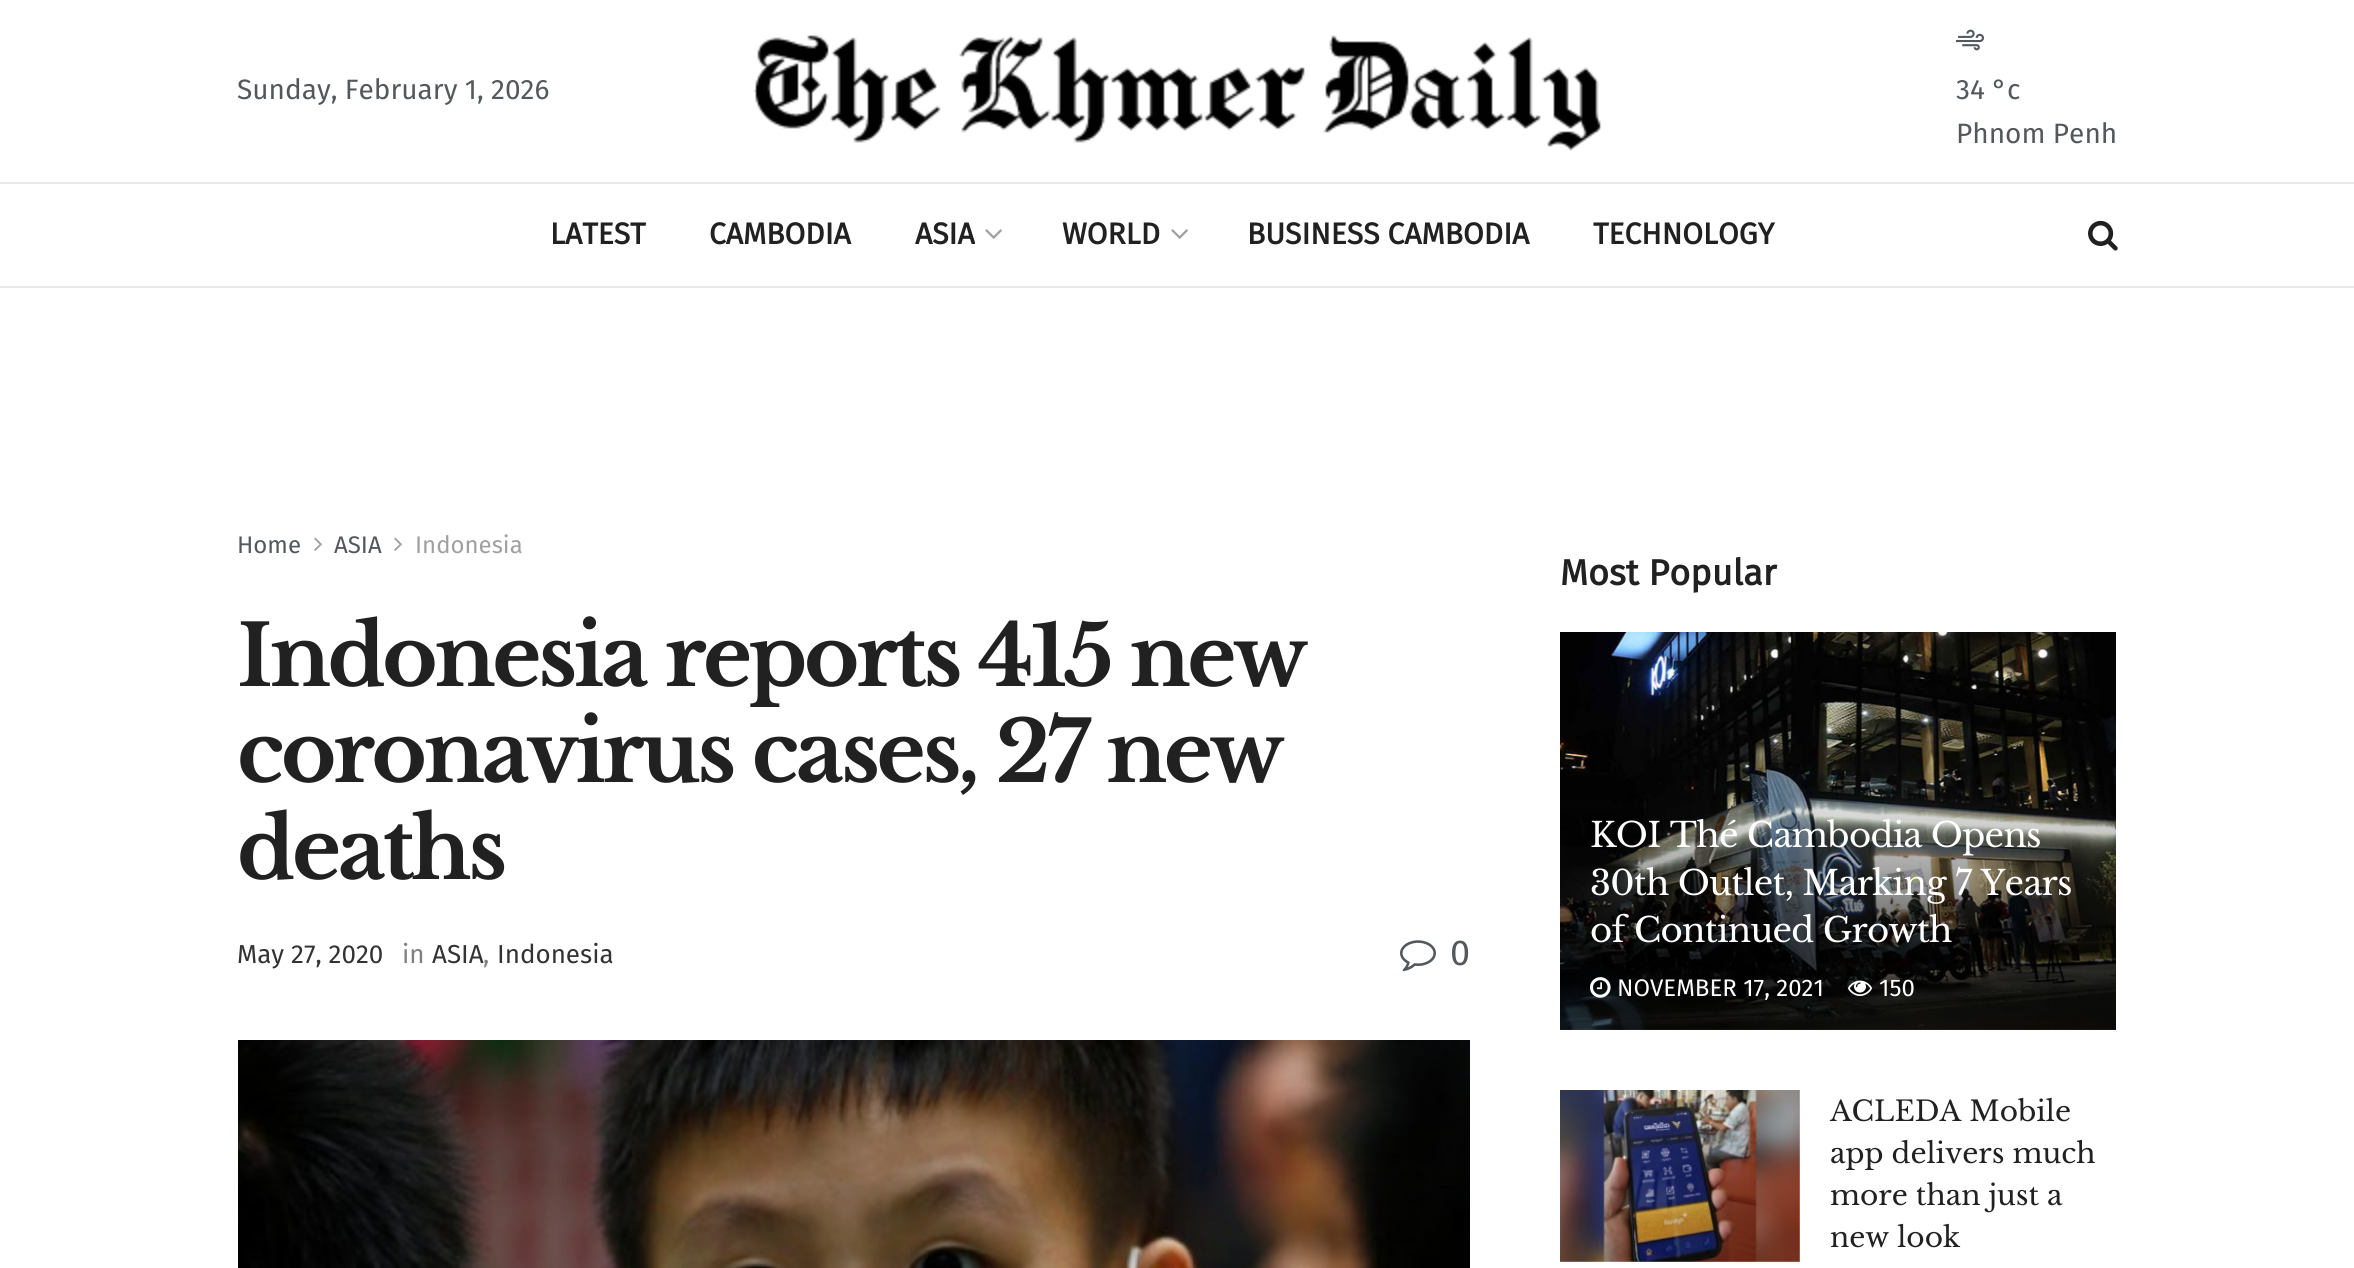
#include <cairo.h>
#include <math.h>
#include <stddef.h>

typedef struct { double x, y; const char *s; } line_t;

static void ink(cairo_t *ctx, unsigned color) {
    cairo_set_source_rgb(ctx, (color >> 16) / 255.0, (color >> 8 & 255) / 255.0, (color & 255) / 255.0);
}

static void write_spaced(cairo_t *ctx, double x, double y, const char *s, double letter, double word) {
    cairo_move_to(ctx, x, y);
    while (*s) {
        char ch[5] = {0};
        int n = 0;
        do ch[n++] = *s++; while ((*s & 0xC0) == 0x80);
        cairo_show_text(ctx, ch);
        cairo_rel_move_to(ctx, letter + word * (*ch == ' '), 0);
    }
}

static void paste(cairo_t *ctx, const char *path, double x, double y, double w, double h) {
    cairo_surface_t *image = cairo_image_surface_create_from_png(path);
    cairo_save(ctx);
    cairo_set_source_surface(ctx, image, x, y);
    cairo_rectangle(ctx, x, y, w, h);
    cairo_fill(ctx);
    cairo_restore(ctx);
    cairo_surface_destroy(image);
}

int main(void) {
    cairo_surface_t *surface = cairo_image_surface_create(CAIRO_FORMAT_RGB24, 2354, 1268);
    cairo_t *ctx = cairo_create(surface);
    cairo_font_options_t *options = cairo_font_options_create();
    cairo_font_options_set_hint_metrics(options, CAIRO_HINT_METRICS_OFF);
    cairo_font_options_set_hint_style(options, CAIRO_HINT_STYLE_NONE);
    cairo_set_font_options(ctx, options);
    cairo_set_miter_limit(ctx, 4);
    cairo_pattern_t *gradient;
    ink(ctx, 0xFFFFFF);
    cairo_paint(ctx);
    cairo_select_font_face(ctx, "Fira Sans", CAIRO_FONT_SLANT_NORMAL, CAIRO_FONT_WEIGHT_NORMAL);
    cairo_set_font_size(ctx, 28);
    ink(ctx, 0x53585C);
    cairo_move_to(ctx, 237, 99);
    cairo_show_text(ctx, "Sunday, February 1, 2026");
    paste(ctx, "media/1.png", 753, 35, 848, 116);
    paste(ctx, "media/2.png", 1956, 29, 28, 22);
    cairo_move_to(ctx, 1956, 99);
    cairo_show_text(ctx, "34 °c");
    cairo_move_to(ctx, 1956, 143);
    cairo_show_text(ctx, "Phnom Penh");
    ink(ctx, 0xE8E8E8);
    cairo_rectangle(ctx, 0, 182, 2354, 2);
    cairo_fill(ctx);
    cairo_rectangle(ctx, 0, 286, 2354, 2);
    cairo_fill(ctx);
    cairo_select_font_face(ctx, "Fira Sans", CAIRO_FONT_SLANT_NORMAL, CAIRO_FONT_WEIGHT_BOLD);
    cairo_set_font_size(ctx, 30);
    ink(ctx, 0x212121);
    {
        static const line_t items[] = {
            {550, 244, "LATEST"},
            {709, 244, "CAMBODIA"},
            {915, 244, "ASIA"},
        };
        for (size_t i = 0; i < sizeof items / sizeof *items; i++) {
            cairo_move_to(ctx, items[i].x, items[i].y);
            cairo_show_text(ctx, items[i].s);
        }
    }
    paste(ctx, "media/3.png", 985, 229, 17, 10);
    cairo_move_to(ctx, 1062, 244);
    cairo_show_text(ctx, "WORLD");
    paste(ctx, "media/3.png", 1171, 229, 17, 10);
    cairo_move_to(ctx, 1247, 244);
    cairo_show_text(ctx, "BUSINESS CAMBODIA");
    cairo_move_to(ctx, 1593, 244);
    cairo_show_text(ctx, "TECHNOLOGY");
    paste(ctx, "media/4.png", 2088, 220, 30, 31);
    cairo_select_font_face(ctx, "Fira Sans", CAIRO_FONT_SLANT_NORMAL, CAIRO_FONT_WEIGHT_NORMAL);
    cairo_set_font_size(ctx, 24);
    ink(ctx, 0x53585C);
    cairo_move_to(ctx, 237, 553);
    cairo_show_text(ctx, "Home");
    paste(ctx, "media/5.png", 314, 537, 8, 14);
    cairo_move_to(ctx, 334, 553);
    cairo_show_text(ctx, "ASIA");
    paste(ctx, "media/5.png", 394, 537, 8, 14);
    ink(ctx, 0xA0A0A0);
    cairo_move_to(ctx, 415, 553);
    cairo_show_text(ctx, "Indonesia");
    cairo_select_font_face(ctx, "Libre Baskerville", CAIRO_FONT_SLANT_NORMAL, CAIRO_FONT_WEIGHT_BOLD);
    cairo_set_font_size(ctx, 84);
    ink(ctx, 0x212121);
    {
        static const line_t items[] = {
            {237, 686, "Indonesia reports 415 new"},
            {237, 782, "coronavirus cases, 27 new"},
            {237, 879, "deaths"},
        };
        for (size_t i = 0; i < sizeof items / sizeof *items; i++) {
            write_spaced(ctx, items[i].x, items[i].y, items[i].s, -3.35, 0);
        }
    }
    cairo_select_font_face(ctx, "Fira Sans", CAIRO_FONT_SLANT_NORMAL, CAIRO_FONT_WEIGHT_NORMAL);
    cairo_set_font_size(ctx, 26);
    ink(ctx, 0x333333);
    cairo_move_to(ctx, 237, 963);
    cairo_show_text(ctx, "May 27, 2020");
    ink(ctx, 0x808080);
    cairo_move_to(ctx, 402, 963);
    cairo_show_text(ctx, "in");
    ink(ctx, 0x333333);
    cairo_move_to(ctx, 432, 963);
    cairo_show_text(ctx, "ASIA");
    ink(ctx, 0x808080);
    cairo_move_to(ctx, 483, 963);
    cairo_show_text(ctx, ",");
    ink(ctx, 0x333333);
    cairo_move_to(ctx, 497, 963);
    cairo_show_text(ctx, "Indonesia");
    paste(ctx, "media/6.png", 1400, 940, 36, 32);
    cairo_set_font_size(ctx, 36);
    ink(ctx, 0x53585C);
    cairo_move_to(ctx, 1450, 965);
    cairo_show_text(ctx, "0");
    paste(ctx, "media/7.png", 238, 1040, 1232, 228);
    cairo_select_font_face(ctx, "Fira Sans", CAIRO_FONT_SLANT_NORMAL, CAIRO_FONT_WEIGHT_BOLD);
    ink(ctx, 0x212121);
    cairo_move_to(ctx, 1560, 585);
    cairo_show_text(ctx, "Most Popular");
    paste(ctx, "media/8.png", 1560, 632, 556, 398);
    gradient = cairo_pattern_create_linear(1838, 774, 1838, 1030);
    cairo_pattern_add_color_stop_rgba(gradient, 0, 0, 0, 0, 0);
    cairo_pattern_add_color_stop_rgba(gradient, 0.7, 0, 0, 0, 0.65);
    cairo_set_source(ctx, gradient);
    cairo_pattern_destroy(gradient);
    cairo_rectangle(ctx, 1560, 780, 556, 250);
    cairo_fill(ctx);
    cairo_select_font_face(ctx, "Libre Baskerville", CAIRO_FONT_SLANT_NORMAL, CAIRO_FONT_WEIGHT_NORMAL);
    cairo_set_font_size(ctx, 34);
    ink(ctx, 0xFFFFFF);
    {
        static const line_t items[] = {
            {1590, 847, "KOI Thé Cambodia Opens"},
            {1590, 895, "30th Outlet, Marking 7 Years"},
            {1590, 942, "of Continued Growth"},
        };
        for (size_t i = 0; i < sizeof items / sizeof *items; i++) {
            write_spaced(ctx, items[i].x, items[i].y, items[i].s, -0.7, 0);
        }
    }
    paste(ctx, "media/9.png", 1590, 977, 21, 21);
    cairo_select_font_face(ctx, "Fira Sans", CAIRO_FONT_SLANT_NORMAL, CAIRO_FONT_WEIGHT_NORMAL);
    cairo_set_font_size(ctx, 24);
    cairo_move_to(ctx, 1617, 996);
    cairo_show_text(ctx, "NOVEMBER 17, 2021");
    paste(ctx, "media/10.png", 1848, 980, 24, 16);
    cairo_move_to(ctx, 1879, 996);
    cairo_show_text(ctx, "150");
    ink(ctx, 0xF7F7F7);
    cairo_rectangle(ctx, 1560, 1090, 240, 172);
    cairo_fill(ctx);
    paste(ctx, "media/11.png", 1560, 1090, 240, 172);
    cairo_select_font_face(ctx, "Libre Baskerville", CAIRO_FONT_SLANT_NORMAL, CAIRO_FONT_WEIGHT_NORMAL);
    cairo_set_font_size(ctx, 28);
    ink(ctx, 0x212121);
    {
        static const line_t items[] = {
            {1830, 1121, "ACLEDA Mobile"},
            {1830, 1163, "app delivers much"},
            {1830, 1205, "more than just a"},
            {1830, 1247, "new look"},
        };
        for (size_t i = 0; i < sizeof items / sizeof *items; i++) {
            cairo_move_to(ctx, items[i].x, items[i].y);
            cairo_show_text(ctx, items[i].s);
        }
    }
    cairo_surface_write_to_png(surface, "image.png");
    cairo_font_options_destroy(options);
    cairo_destroy(ctx);
    cairo_surface_destroy(surface);
    return 0;
}
